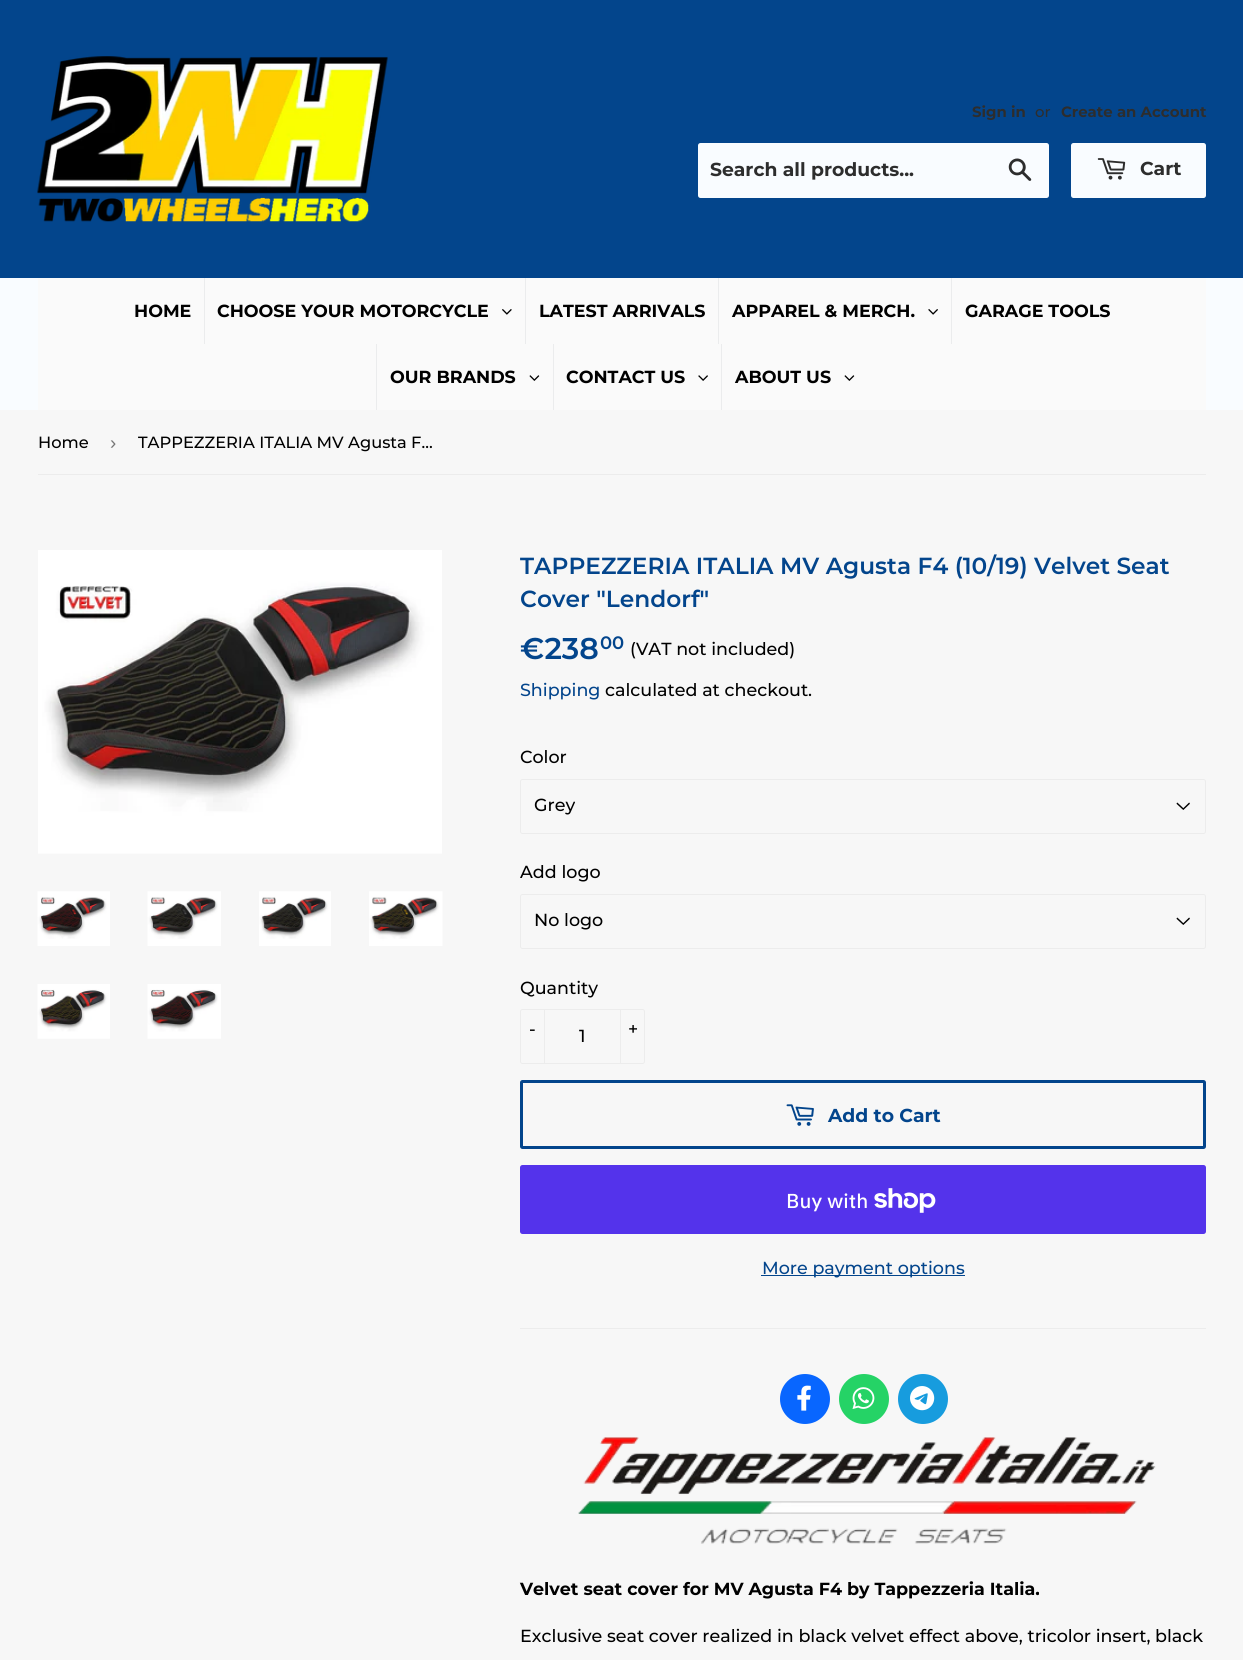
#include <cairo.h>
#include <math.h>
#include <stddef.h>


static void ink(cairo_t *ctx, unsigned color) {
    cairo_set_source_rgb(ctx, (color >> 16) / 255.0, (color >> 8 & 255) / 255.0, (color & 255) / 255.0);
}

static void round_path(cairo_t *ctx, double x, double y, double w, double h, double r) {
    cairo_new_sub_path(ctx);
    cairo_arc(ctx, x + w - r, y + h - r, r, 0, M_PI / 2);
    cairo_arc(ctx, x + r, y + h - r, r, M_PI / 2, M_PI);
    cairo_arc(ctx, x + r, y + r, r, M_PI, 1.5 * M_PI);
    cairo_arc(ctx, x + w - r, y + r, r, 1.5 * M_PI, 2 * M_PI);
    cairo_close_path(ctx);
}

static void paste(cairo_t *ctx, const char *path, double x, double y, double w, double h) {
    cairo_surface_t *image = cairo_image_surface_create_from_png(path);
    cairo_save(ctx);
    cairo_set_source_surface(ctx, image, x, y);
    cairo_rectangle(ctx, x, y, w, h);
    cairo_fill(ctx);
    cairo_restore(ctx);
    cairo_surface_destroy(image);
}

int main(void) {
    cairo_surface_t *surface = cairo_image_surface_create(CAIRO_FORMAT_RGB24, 1243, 1660);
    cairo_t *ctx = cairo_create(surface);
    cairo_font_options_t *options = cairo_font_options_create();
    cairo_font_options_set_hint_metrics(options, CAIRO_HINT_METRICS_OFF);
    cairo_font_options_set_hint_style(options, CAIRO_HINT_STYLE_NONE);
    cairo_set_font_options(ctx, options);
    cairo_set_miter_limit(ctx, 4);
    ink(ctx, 0xF7F7F7);
    cairo_paint(ctx);
    ink(ctx, 0x03458C);
    cairo_rectangle(ctx, 0, 0, 1243, 278);
    cairo_fill(ctx);
    paste(ctx, "media/1.png", 37, 56, 351, 166);
    cairo_select_font_face(ctx, "Montserrat", CAIRO_FONT_SLANT_NORMAL, CAIRO_FONT_WEIGHT_BOLD);
    cairo_set_font_size(ctx, 14.9);
    ink(ctx, 0x2D2D2D);
    cairo_move_to(ctx, 972, 117);
    cairo_show_text(ctx, "Sign in");
    cairo_select_font_face(ctx, "Montserrat Medium", CAIRO_FONT_SLANT_NORMAL, CAIRO_FONT_WEIGHT_NORMAL);
    cairo_move_to(ctx, 1035, 117);
    cairo_show_text(ctx, "or");
    cairo_select_font_face(ctx, "Montserrat", CAIRO_FONT_SLANT_NORMAL, CAIRO_FONT_WEIGHT_BOLD);
    cairo_move_to(ctx, 1061, 117);
    cairo_show_text(ctx, "Create an Account");
    ink(ctx, 0xF9FCFF);
    round_path(ctx, 698, 143, 351, 55, 2.5);
    cairo_fill(ctx);
    cairo_set_font_size(ctx, 18.75);
    ink(ctx, 0x2D2D2D);
    cairo_move_to(ctx, 710, 176);
    cairo_show_text(ctx, "Search all products...");
    paste(ctx, "media/2.png", 1008, 158, 24, 23);
    ink(ctx, 0xF9FCFF);
    round_path(ctx, 1071, 143, 135, 55, 2.5);
    cairo_fill(ctx);
    paste(ctx, "media/3.png", 1097, 158, 29, 22);
    ink(ctx, 0x2D2D2D);
    cairo_move_to(ctx, 1140, 175);
    cairo_show_text(ctx, "Cart");
    ink(ctx, 0xF9FCFF);
    cairo_rectangle(ctx, 0, 278, 1243, 132);
    cairo_fill(ctx);
    ink(ctx, 0xFAFAFA);
    cairo_rectangle(ctx, 38, 278, 1168, 132);
    cairo_fill(ctx);
    cairo_set_font_size(ctx, 17.5);
    ink(ctx, 0x000000);
    cairo_move_to(ctx, 134, 317);
    cairo_show_text(ctx, "HOME");
    ink(ctx, 0xEBECED);
    cairo_rectangle(ctx, 204, 278, 1, 66);
    cairo_fill(ctx);
    ink(ctx, 0x000000);
    cairo_move_to(ctx, 217, 317);
    cairo_show_text(ctx, "CHOOSE YOUR MOTORCYCLE");
    paste(ctx, "media/4.png", 502, 309, 10, 6);
    ink(ctx, 0xEBECED);
    cairo_rectangle(ctx, 525, 278, 1, 66);
    cairo_fill(ctx);
    ink(ctx, 0x000000);
    cairo_move_to(ctx, 539, 317);
    cairo_show_text(ctx, "LATEST ARRIVALS");
    ink(ctx, 0xEBECED);
    cairo_rectangle(ctx, 718, 278, 1, 66);
    cairo_fill(ctx);
    ink(ctx, 0x000000);
    cairo_move_to(ctx, 732, 317);
    cairo_show_text(ctx, "APPAREL & MERCH.");
    paste(ctx, "media/5.png", 928, 309, 10, 6);
    ink(ctx, 0xEBECED);
    cairo_rectangle(ctx, 951, 278, 1, 66);
    cairo_fill(ctx);
    ink(ctx, 0x000000);
    cairo_move_to(ctx, 965, 317);
    cairo_show_text(ctx, "GARAGE TOOLS");
    ink(ctx, 0xEBECED);
    cairo_rectangle(ctx, 376, 344, 1, 66);
    cairo_fill(ctx);
    ink(ctx, 0x000000);
    cairo_move_to(ctx, 390, 383);
    cairo_show_text(ctx, "OUR BRANDS");
    paste(ctx, "media/6.png", 529, 375, 11, 6);
    ink(ctx, 0xEBECED);
    cairo_rectangle(ctx, 553, 344, 1, 66);
    cairo_fill(ctx);
    ink(ctx, 0x000000);
    cairo_move_to(ctx, 566, 383);
    cairo_show_text(ctx, "CONTACT US");
    paste(ctx, "media/7.png", 698, 375, 10, 6);
    ink(ctx, 0xEBECED);
    cairo_rectangle(ctx, 721, 344, 1, 66);
    cairo_fill(ctx);
    ink(ctx, 0x000000);
    cairo_move_to(ctx, 735, 383);
    cairo_show_text(ctx, "ABOUT US");
    paste(ctx, "media/6.png", 844, 375, 11, 6);
    ink(ctx, 0xECECEC);
    cairo_rectangle(ctx, 38, 474, 1168, 1);
    cairo_fill(ctx);
    cairo_select_font_face(ctx, "Montserrat Medium", CAIRO_FONT_SLANT_NORMAL, CAIRO_FONT_WEIGHT_NORMAL);
    cairo_set_font_size(ctx, 16.25);
    ink(ctx, 0x000000);
    cairo_move_to(ctx, 38, 448);
    cairo_show_text(ctx, "Home");
    cairo_select_font_face(ctx, "Liberation Sans", CAIRO_FONT_SLANT_NORMAL, CAIRO_FONT_WEIGHT_NORMAL);
    cairo_set_font_size(ctx, 18.75);
    ink(ctx, 0x767676);
    cairo_move_to(ctx, 110, 449);
    cairo_show_text(ctx, "›");
    cairo_select_font_face(ctx, "Montserrat Medium", CAIRO_FONT_SLANT_NORMAL, CAIRO_FONT_WEIGHT_NORMAL);
    cairo_set_font_size(ctx, 16.25);
    ink(ctx, 0x000000);
    cairo_move_to(ctx, 138, 448);
    cairo_show_text(ctx, "TAPPEZZERIA ITALIA MV Agusta F…");
    paste(ctx, "media/8.png", 38, 550, 404, 304);
    paste(ctx, "media/9.png", 37, 891, 73, 55);
    paste(ctx, "media/10.png", 147, 891, 74, 55);
    paste(ctx, "media/11.png", 259, 891, 72, 55);
    paste(ctx, "media/12.png", 369, 891, 74, 55);
    paste(ctx, "media/13.png", 37, 984, 73, 55);
    paste(ctx, "media/14.png", 147, 984, 74, 55);
    cairo_select_font_face(ctx, "Montserrat SemiBold", CAIRO_FONT_SLANT_NORMAL, CAIRO_FONT_WEIGHT_NORMAL);
    cairo_set_font_size(ctx, 23.3);
    ink(ctx, 0x03458C);
    cairo_move_to(ctx, 520, 574);
    cairo_show_text(ctx, "TAPPEZZERIA ITALIA MV Agusta F4 (10/19) Velvet Seat");
    cairo_move_to(ctx, 520, 607);
    cairo_show_text(ctx, "Cover \"Lendorf\"");
    cairo_set_font_size(ctx, 30);
    cairo_move_to(ctx, 520, 659);
    cairo_show_text(ctx, "€238");
    cairo_set_font_size(ctx, 18);
    cairo_move_to(ctx, 600, 649);
    cairo_show_text(ctx, "00");
    cairo_select_font_face(ctx, "Montserrat Medium", CAIRO_FONT_SLANT_NORMAL, CAIRO_FONT_WEIGHT_NORMAL);
    cairo_set_font_size(ctx, 17.5);
    ink(ctx, 0x000000);
    cairo_move_to(ctx, 630, 655);
    cairo_show_text(ctx, "(VAT not included)");
    ink(ctx, 0x03458C);
    cairo_move_to(ctx, 520, 696);
    cairo_show_text(ctx, "Shipping");
    ink(ctx, 0x000000);
    cairo_move_to(ctx, 605, 696);
    cairo_show_text(ctx, "calculated at checkout.");
    cairo_move_to(ctx, 520, 763);
    cairo_show_text(ctx, "Color");
    paste(ctx, "media/15.png", 1176, 802, 14, 8);
    round_path(ctx, 520.5, 779.5, 685, 54, 2);
    ink(ctx, 0xECECEC);
    cairo_set_line_width(ctx, 1);
    cairo_stroke(ctx);
    ink(ctx, 0x000000);
    cairo_move_to(ctx, 534, 811);
    cairo_show_text(ctx, "Grey");
    cairo_move_to(ctx, 520, 878);
    cairo_show_text(ctx, "Add logo");
    paste(ctx, "media/15.png", 1176, 917, 14, 8);
    round_path(ctx, 520.5, 894.5, 685, 54, 2);
    ink(ctx, 0xECECEC);
    cairo_stroke(ctx);
    ink(ctx, 0x000000);
    cairo_move_to(ctx, 534, 926);
    cairo_show_text(ctx, "No logo");
    cairo_move_to(ctx, 520, 994);
    cairo_show_text(ctx, "Quantity");
    round_path(ctx, 520.5, 1009.5, 124, 54, 2);
    ink(ctx, 0xECECEC);
    cairo_stroke(ctx);
    cairo_rectangle(ctx, 544, 1009, 1, 55);
    cairo_fill(ctx);
    ink(ctx, 0x000000);
    cairo_move_to(ctx, 529, 1035);
    cairo_show_text(ctx, "-");
    cairo_move_to(ctx, 579, 1042);
    cairo_show_text(ctx, "1");
    ink(ctx, 0xECECEC);
    cairo_rectangle(ctx, 620, 1009, 1, 55);
    cairo_fill(ctx);
    ink(ctx, 0x000000);
    cairo_move_to(ctx, 628, 1035);
    cairo_show_text(ctx, "+");
    round_path(ctx, 521.5, 1081.5, 683, 66, 1);
    ink(ctx, 0x03458C);
    cairo_set_line_width(ctx, 3);
    cairo_stroke(ctx);
    paste(ctx, "media/16.png", 786, 1104, 28, 22);
    cairo_select_font_face(ctx, "Montserrat", CAIRO_FONT_SLANT_NORMAL, CAIRO_FONT_WEIGHT_BOLD);
    cairo_set_font_size(ctx, 18.75);
    cairo_move_to(ctx, 828, 1122);
    cairo_show_text(ctx, "Add to Cart");
    ink(ctx, 0x5433EB);
    round_path(ctx, 520, 1165, 686, 69, 2.5);
    cairo_fill(ctx);
    cairo_select_font_face(ctx, "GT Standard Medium", CAIRO_FONT_SLANT_NORMAL, CAIRO_FONT_WEIGHT_NORMAL);
    cairo_set_font_size(ctx, 20);
    ink(ctx, 0xFFFFFF);
    cairo_move_to(ctx, 786, 1208);
    cairo_show_text(ctx, "Buy with");
    paste(ctx, "media/17.png", 874, 1188, 62, 25);
    ink(ctx, 0x03458C);
    cairo_rectangle(ctx, 761, 1275, 204, 1);
    cairo_fill(ctx);
    cairo_select_font_face(ctx, "Montserrat Medium", CAIRO_FONT_SLANT_NORMAL, CAIRO_FONT_WEIGHT_NORMAL);
    cairo_set_font_size(ctx, 17.5);
    cairo_move_to(ctx, 762, 1274);
    cairo_show_text(ctx, "More payment options");
    ink(ctx, 0xECECEC);
    cairo_rectangle(ctx, 520, 1328, 686, 1);
    cairo_fill(ctx);
    ink(ctx, 0x0866FF);
    cairo_arc(ctx, 805, 1399, 25, 0, 2 * M_PI);
    cairo_fill(ctx);
    paste(ctx, "media/18.png", 797, 1385, 14, 26);
    ink(ctx, 0x25D366);
    cairo_arc(ctx, 864, 1399, 25, 0, 2 * M_PI);
    cairo_fill(ctx);
    paste(ctx, "media/19.png", 852, 1387, 23, 22);
    ink(ctx, 0x179CDE);
    cairo_arc(ctx, 923, 1399, 25, 0, 2 * M_PI);
    cairo_fill(ctx);
    paste(ctx, "media/20.png", 910, 1386, 25, 25);
    paste(ctx, "media/21.png", 578, 1437, 578, 107);
    cairo_select_font_face(ctx, "Montserrat", CAIRO_FONT_SLANT_NORMAL, CAIRO_FONT_WEIGHT_BOLD);
    ink(ctx, 0x000000);
    cairo_move_to(ctx, 520, 1595);
    cairo_show_text(ctx, "Velvet seat cover for MV Agusta F4 by Tappezzeria Italia.");
    cairo_select_font_face(ctx, "Montserrat Medium", CAIRO_FONT_SLANT_NORMAL, CAIRO_FONT_WEIGHT_NORMAL);
    cairo_move_to(ctx, 520, 1642);
    cairo_show_text(ctx, "Exclusive seat cover realized in black velvet effect above, tricolor insert, black");
    cairo_surface_write_to_png(surface, "image.png");
    cairo_font_options_destroy(options);
    cairo_destroy(ctx);
    cairo_surface_destroy(surface);
    return 0;
}
